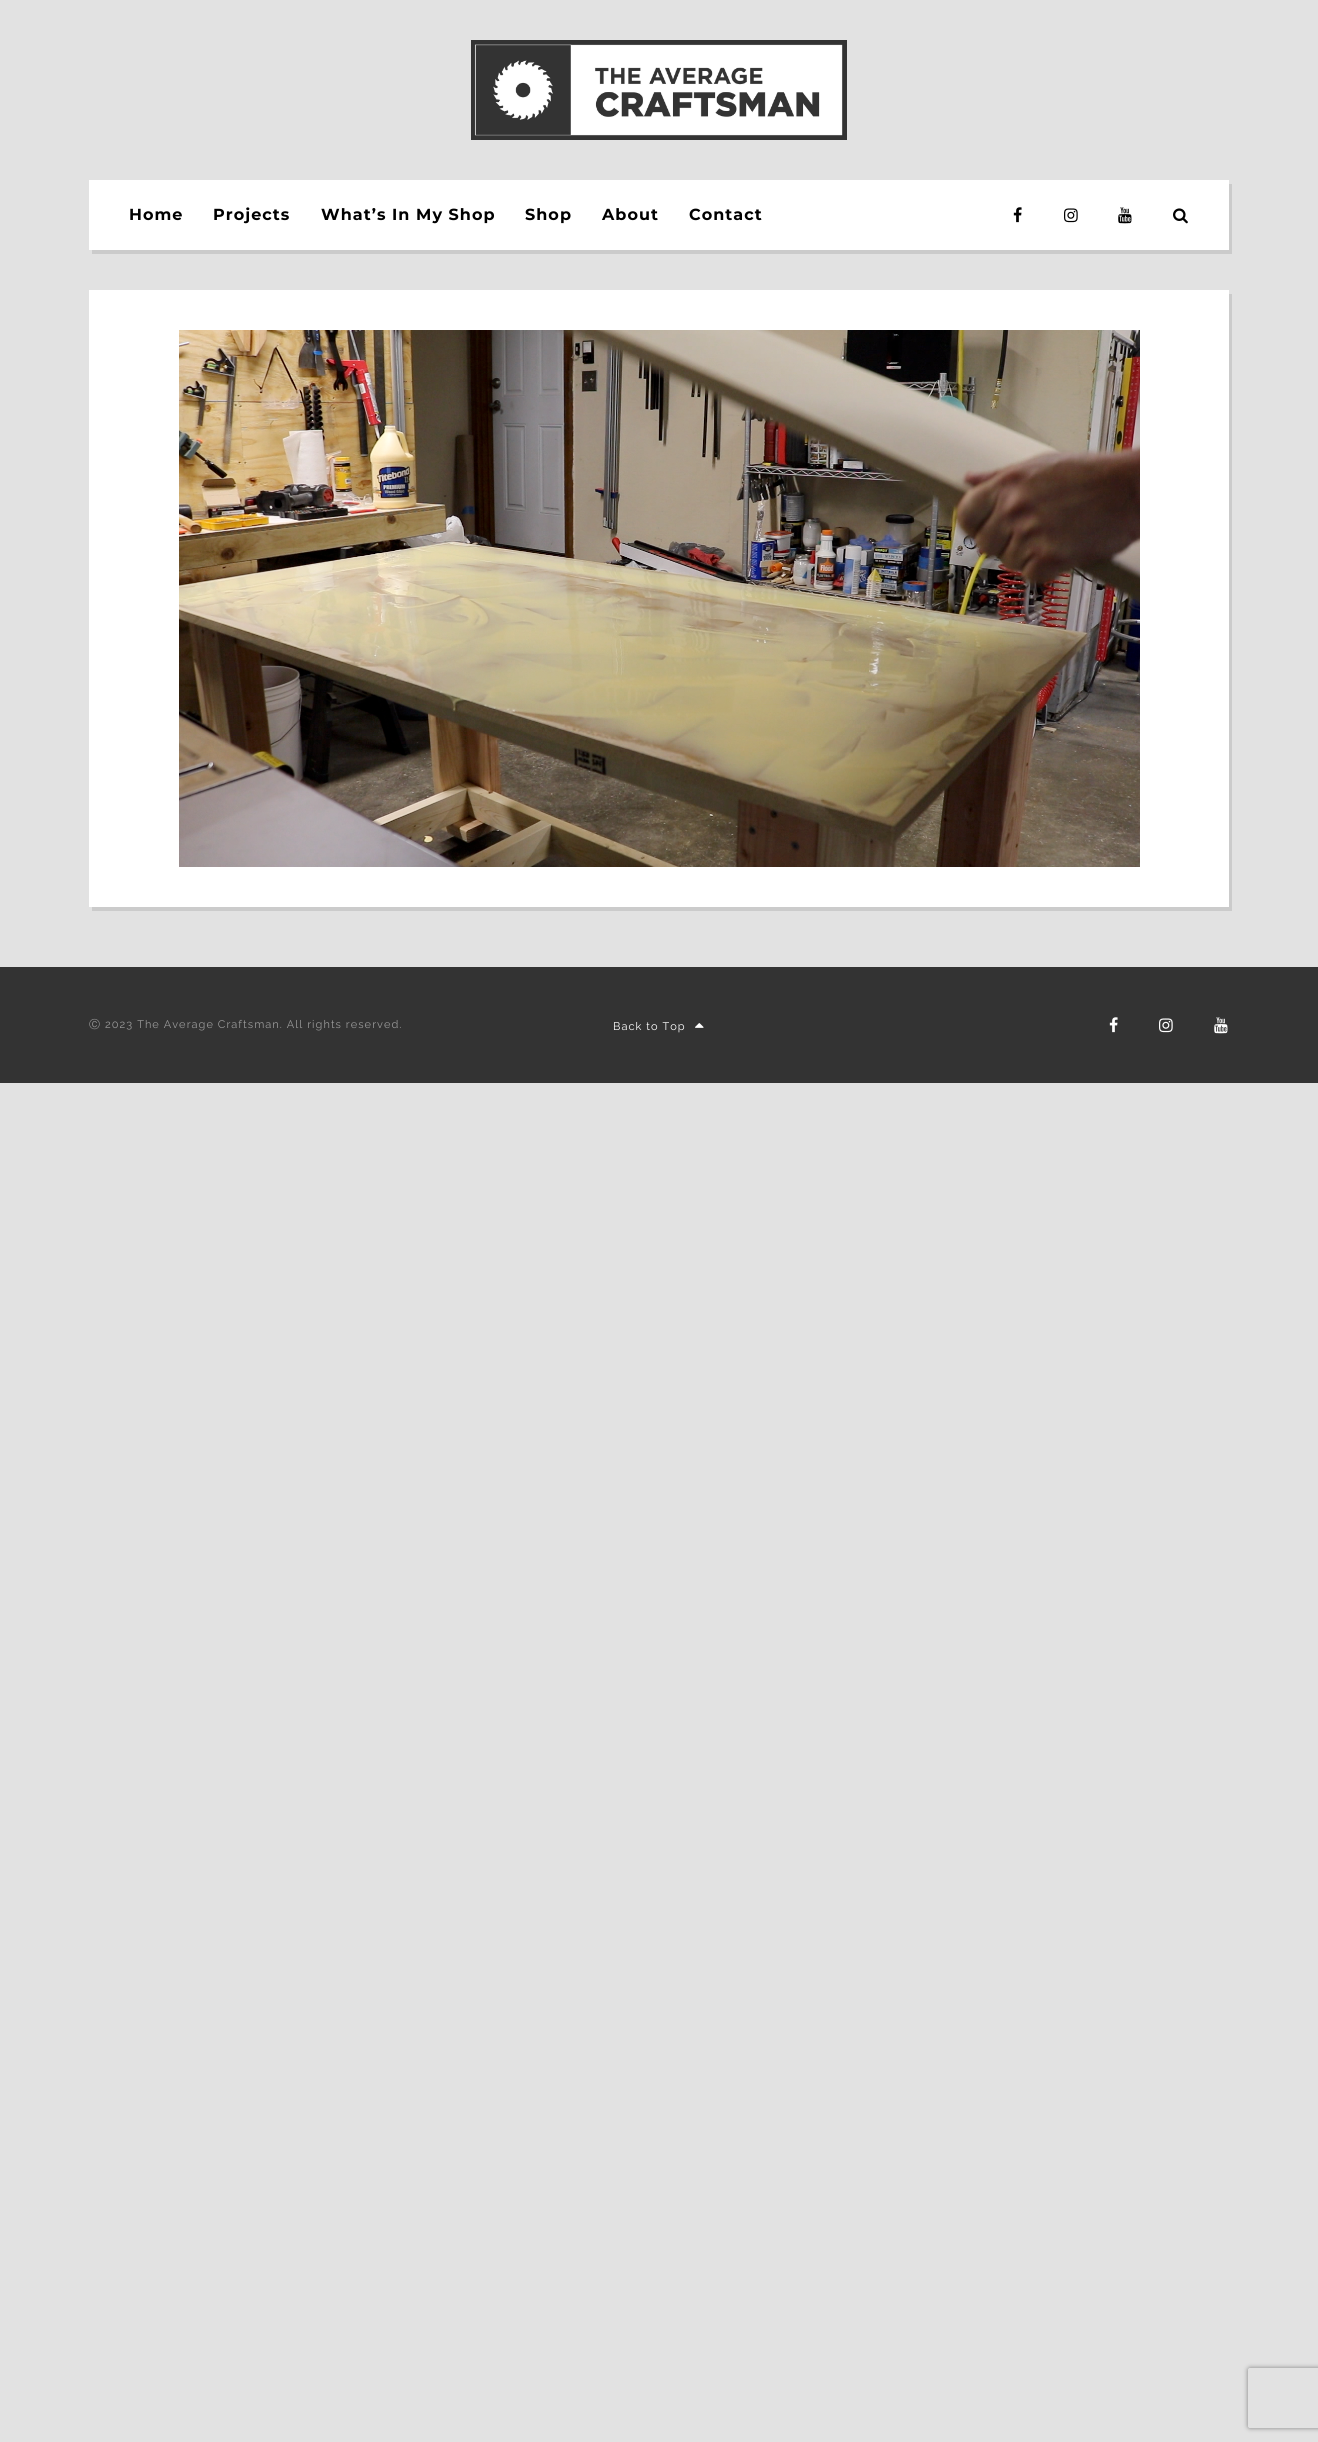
#include <cairo.h>
#include <math.h>
#include <stddef.h>

typedef struct { double x, y; const char *s; } line_t;

static void ink(cairo_t *ctx, unsigned color) {
    cairo_set_source_rgb(ctx, (color >> 16) / 255.0, (color >> 8 & 255) / 255.0, (color & 255) / 255.0);
}

static void write_spaced(cairo_t *ctx, double x, double y, const char *s, double letter, double word) {
    cairo_move_to(ctx, x, y);
    while (*s) {
        char ch[5] = {0};
        int n = 0;
        do ch[n++] = *s++; while ((*s & 0xC0) == 0x80);
        cairo_show_text(ctx, ch);
        cairo_rel_move_to(ctx, letter + word * (*ch == ' '), 0);
    }
}

static void round_path(cairo_t *ctx, double x, double y, double w, double h, double r) {
    cairo_new_sub_path(ctx);
    cairo_arc(ctx, x + w - r, y + h - r, r, 0, M_PI / 2);
    cairo_arc(ctx, x + r, y + h - r, r, M_PI / 2, M_PI);
    cairo_arc(ctx, x + r, y + r, r, M_PI, 1.5 * M_PI);
    cairo_arc(ctx, x + w - r, y + r, r, 1.5 * M_PI, 2 * M_PI);
    cairo_close_path(ctx);
}

static void blur_box(cairo_t *ctx, double x, double y, double w, double h, double r, double blur, double alpha) {
    cairo_push_group_with_content(ctx, CAIRO_CONTENT_ALPHA);
    cairo_set_operator(ctx, CAIRO_OPERATOR_SOURCE);
    for (int i = 15; i >= -15 && fmin(w, h) + blur * i / 3 > 0; i -= 2) {
        double e = blur * i / 6;
        cairo_set_source_rgba(ctx, 0, 0, 0, alpha * erfc((i - 1) / 8.5) / 2);
        round_path(ctx, x - e, y - e, w + 2 * e, h + 2 * e, fmax(0, fmin(r + e + blur * .6, fmin(w, h) / 2 + e)));
        cairo_fill(ctx);
    }
    cairo_pattern_t *soft = cairo_pop_group(ctx);
    cairo_mask(ctx, soft);
    cairo_pattern_destroy(soft);
}

static void paste(cairo_t *ctx, const char *path, double x, double y, double w, double h) {
    cairo_surface_t *image = cairo_image_surface_create_from_png(path);
    cairo_save(ctx);
    cairo_set_source_surface(ctx, image, x, y);
    cairo_rectangle(ctx, x, y, w, h);
    cairo_fill(ctx);
    cairo_restore(ctx);
    cairo_surface_destroy(image);
}

int main(void) {
    cairo_surface_t *surface = cairo_image_surface_create(CAIRO_FORMAT_RGB24, 1318, 2442);
    cairo_t *ctx = cairo_create(surface);
    cairo_font_options_t *options = cairo_font_options_create();
    cairo_font_options_set_hint_metrics(options, CAIRO_HINT_METRICS_OFF);
    cairo_font_options_set_hint_style(options, CAIRO_HINT_STYLE_NONE);
    cairo_set_font_options(ctx, options);
    cairo_set_miter_limit(ctx, 4);
    ink(ctx, 0xE2E2E2);
    cairo_paint(ctx);
    paste(ctx, "media/1.png", 471, 40, 376, 100);
    ink(ctx, 0xCBCBCB);
    cairo_new_path(ctx);
    cairo_move_to(ctx, 92, 250);
    cairo_line_to(ctx, 92, 254);
    cairo_line_to(ctx, 1232, 254);
    cairo_line_to(ctx, 1232, 184);
    cairo_line_to(ctx, 1229, 184);
    cairo_line_to(ctx, 1229, 250);
    cairo_close_path(ctx);
    cairo_fill(ctx);
    ink(ctx, 0xFFFFFF);
    cairo_rectangle(ctx, 89, 180, 1140, 70);
    cairo_fill(ctx);
    cairo_select_font_face(ctx, "Montserrat", CAIRO_FONT_SLANT_NORMAL, CAIRO_FONT_WEIGHT_BOLD);
    cairo_set_font_size(ctx, 16);
    ink(ctx, 0x000000);
    {
        static const line_t items[] = {
            {129, 220, "Home"},
            {213, 220, "Projects"},
            {321, 220, "What’s In My Shop"},
            {525, 220, "Shop"},
            {602, 220, "About"},
            {689, 220, "Contact"},
        };
        for (size_t i = 0; i < sizeof items / sizeof *items; i++) {
            write_spaced(ctx, items[i].x, items[i].y, items[i].s, 1.05, 0);
        }
    }
    paste(ctx, "media/2.png", 1013, 207, 9, 16);
    paste(ctx, "media/3.png", 1064, 208, 14, 15);
    paste(ctx, "media/4.png", 1118, 207, 14, 17);
    paste(ctx, "media/5.png", 1173, 208, 15, 16);
    ink(ctx, 0xCBCBCB);
    cairo_new_path(ctx);
    cairo_move_to(ctx, 92, 907);
    cairo_line_to(ctx, 92, 911);
    cairo_line_to(ctx, 1232, 911);
    cairo_line_to(ctx, 1232, 294);
    cairo_line_to(ctx, 1229, 294);
    cairo_line_to(ctx, 1229, 907);
    cairo_close_path(ctx);
    cairo_fill(ctx);
    ink(ctx, 0xFFFFFF);
    cairo_rectangle(ctx, 89, 290, 1140, 617);
    cairo_fill(ctx);
    paste(ctx, "media/6.png", 179, 330, 961, 537);
    ink(ctx, 0x333333);
    cairo_rectangle(ctx, 0, 967, 1318, 116);
    cairo_fill(ctx);
    cairo_select_font_face(ctx, "WenQuanYi Zen Hei Medium", CAIRO_FONT_SLANT_NORMAL, CAIRO_FONT_WEIGHT_NORMAL);
    cairo_set_font_size(ctx, 11);
    ink(ctx, 0x999999);
    write_spaced(ctx, 89, 1028, "Ⓒ", 1.05, 0);
    cairo_select_font_face(ctx, "Raleway", CAIRO_FONT_SLANT_NORMAL, CAIRO_FONT_WEIGHT_NORMAL);
    write_spaced(ctx, 105, 1028, "2023 The Average Craftsman. All rights reserved.", 1.05, 0);
    ink(ctx, 0xFFFFFF);
    write_spaced(ctx, 613, 1030, "Back to Top", 1.05, 0);
    paste(ctx, "media/7.png", 695, 1023, 9, 5);
    paste(ctx, "media/8.png", 1109, 1017, 9, 16);
    paste(ctx, "media/9.png", 1159, 1018, 14, 15);
    paste(ctx, "media/10.png", 1214, 1017, 14, 17);
    cairo_save(ctx);
    cairo_set_fill_rule(ctx, CAIRO_FILL_RULE_EVEN_ODD);
    cairo_new_path(ctx);
    cairo_move_to(ctx, 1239, 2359);
    cairo_line_to(ctx, 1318, 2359);
    cairo_line_to(ctx, 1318, 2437);
    cairo_line_to(ctx, 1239, 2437);
    cairo_close_path(ctx);
    cairo_move_to(ctx, 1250, 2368);
    cairo_line_to(ctx, 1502, 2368);
    cairo_curve_to(ctx, 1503, 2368, 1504, 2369, 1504, 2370);
    cairo_line_to(ctx, 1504, 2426);
    cairo_curve_to(ctx, 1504, 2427, 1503, 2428, 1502, 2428);
    cairo_line_to(ctx, 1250, 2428);
    cairo_curve_to(ctx, 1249, 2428, 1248, 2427, 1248, 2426);
    cairo_line_to(ctx, 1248, 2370);
    cairo_curve_to(ctx, 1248, 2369, 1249, 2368, 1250, 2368);
    cairo_close_path(ctx);
    cairo_clip(ctx);
    ink(ctx, 0x808080);
    blur_box(ctx, 1248, 2368, 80, 60, 2, 2.5, 1);
    cairo_restore(ctx);
    cairo_surface_write_to_png(surface, "image.png");
    cairo_font_options_destroy(options);
    cairo_destroy(ctx);
    cairo_surface_destroy(surface);
    return 0;
}
